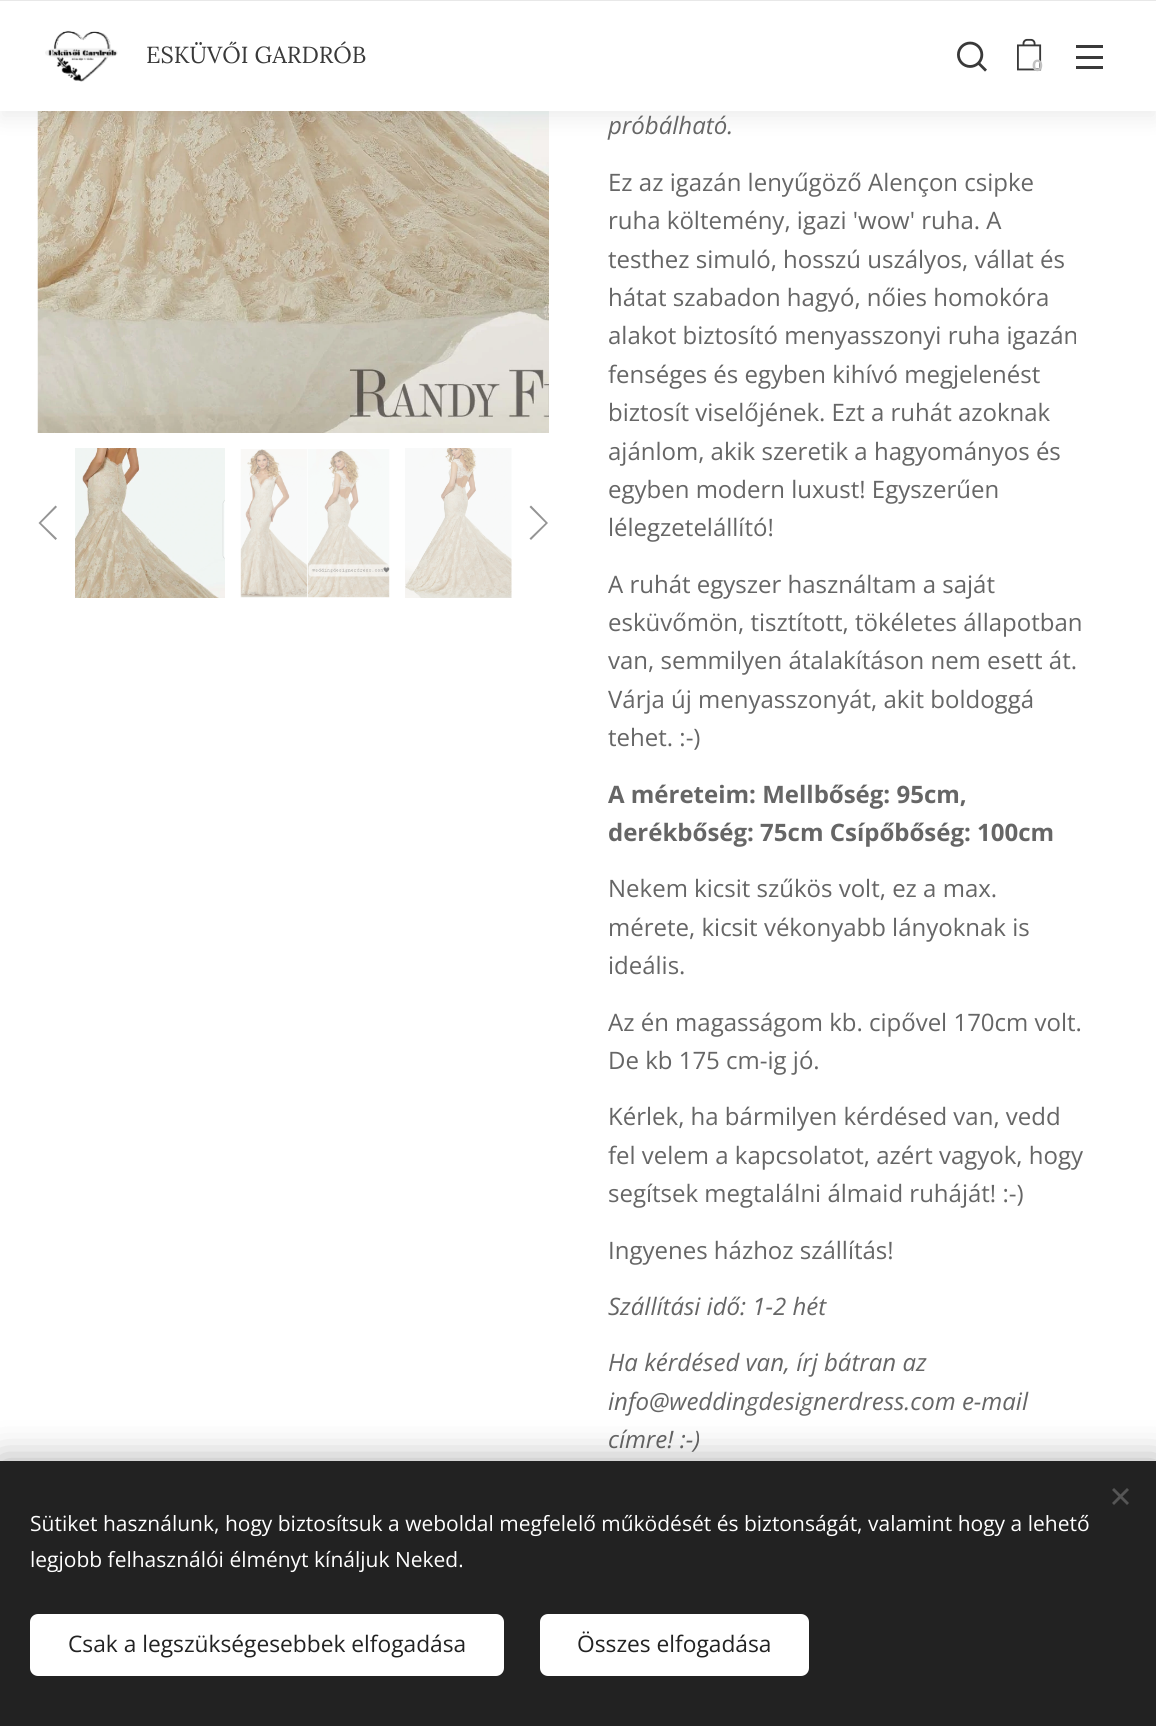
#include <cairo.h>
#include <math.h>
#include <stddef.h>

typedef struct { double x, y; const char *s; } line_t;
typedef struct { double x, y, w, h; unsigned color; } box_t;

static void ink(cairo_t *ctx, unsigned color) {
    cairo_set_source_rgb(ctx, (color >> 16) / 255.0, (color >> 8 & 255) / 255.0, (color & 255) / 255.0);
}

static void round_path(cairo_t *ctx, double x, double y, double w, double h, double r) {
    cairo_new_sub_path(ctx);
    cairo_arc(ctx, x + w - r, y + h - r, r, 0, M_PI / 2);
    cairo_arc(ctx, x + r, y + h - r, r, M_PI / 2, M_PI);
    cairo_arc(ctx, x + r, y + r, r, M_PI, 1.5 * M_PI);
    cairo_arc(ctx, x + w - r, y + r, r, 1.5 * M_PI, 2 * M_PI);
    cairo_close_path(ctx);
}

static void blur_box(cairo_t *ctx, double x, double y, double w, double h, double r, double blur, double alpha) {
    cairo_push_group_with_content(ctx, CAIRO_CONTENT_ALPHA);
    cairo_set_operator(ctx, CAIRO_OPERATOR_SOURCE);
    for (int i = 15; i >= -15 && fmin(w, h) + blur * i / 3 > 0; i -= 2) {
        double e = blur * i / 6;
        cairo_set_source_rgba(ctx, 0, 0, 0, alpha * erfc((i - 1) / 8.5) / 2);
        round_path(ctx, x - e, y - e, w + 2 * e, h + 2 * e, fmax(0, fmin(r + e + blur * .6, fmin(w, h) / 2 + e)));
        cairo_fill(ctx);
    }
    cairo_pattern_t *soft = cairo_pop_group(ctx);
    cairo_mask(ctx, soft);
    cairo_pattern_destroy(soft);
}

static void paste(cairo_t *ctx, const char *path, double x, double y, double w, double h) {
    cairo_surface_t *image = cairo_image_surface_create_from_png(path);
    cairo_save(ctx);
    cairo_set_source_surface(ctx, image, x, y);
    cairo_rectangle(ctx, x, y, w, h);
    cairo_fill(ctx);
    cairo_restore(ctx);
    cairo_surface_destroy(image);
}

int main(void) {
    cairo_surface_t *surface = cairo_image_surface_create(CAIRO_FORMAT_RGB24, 1156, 1726);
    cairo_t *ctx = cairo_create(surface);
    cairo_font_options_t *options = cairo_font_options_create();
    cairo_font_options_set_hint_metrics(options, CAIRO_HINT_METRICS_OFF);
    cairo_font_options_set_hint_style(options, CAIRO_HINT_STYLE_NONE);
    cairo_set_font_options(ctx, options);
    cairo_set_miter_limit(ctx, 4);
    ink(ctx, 0xFFFFFF);
    cairo_paint(ctx);
    paste(ctx, "media/4.png", 37, 111, 512, 322);
    ink(ctx, 0x000000);
    blur_box(ctx, 0, 8, 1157, 111, 0, 11, 0.07);
    ink(ctx, 0xFFFFFF);
    cairo_rectangle(ctx, 0, 1, 1156, 110);
    cairo_fill(ctx);
    paste(ctx, "media/1.png", 45, 30, 73, 52);
    cairo_select_font_face(ctx, "Lora", CAIRO_FONT_SLANT_NORMAL, CAIRO_FONT_WEIGHT_NORMAL);
    cairo_set_font_size(ctx, 23.25);
    ink(ctx, 0x393939);
    cairo_move_to(ctx, 146, 63);
    cairo_show_text(ctx, "ESKÜVŐI GARDRÓB");
    ink(ctx, 0xE8E8E8);
    cairo_rectangle(ctx, 0, 0, 1156, 1);
    cairo_fill(ctx);
    paste(ctx, "media/2.png", 957, 41, 30, 31);
    paste(ctx, "media/3.png", 1017, 38, 25, 33);
    cairo_select_font_face(ctx, "Montserrat", CAIRO_FONT_SLANT_NORMAL, CAIRO_FONT_WEIGHT_BOLD);
    cairo_set_font_size(ctx, 16);
    ink(ctx, 0xC2C2C2);
    cairo_move_to(ctx, 1032, 71);
    cairo_show_text(ctx, "0");
    {
        static const box_t items[] = {
            {1076, 56, 27, 3, 0x393939},
            {1076, 45, 27, 3, 0x393939},
            {1076, 66, 27, 3, 0x393939},
        };
        for (size_t i = 0; i < sizeof items / sizeof *items; i++) {
            ink(ctx, items[i].color);
            cairo_rectangle(ctx, items[i].x, items[i].y, items[i].w, items[i].h);
            cairo_fill(ctx);
        }
    }
    ink(ctx, 0x949494);
    cairo_new_path(ctx);
    cairo_move_to(ctx, 55.5, 540);
    cairo_line_to(ctx, 57, 538.5);
    cairo_line_to(ctx, 41, 523);
    cairo_line_to(ctx, 57, 507);
    cairo_line_to(ctx, 55.5, 505.5);
    cairo_line_to(ctx, 38.5, 523);
    cairo_close_path(ctx);
    cairo_fill(ctx);
    paste(ctx, "media/5.png", 75, 448, 150, 150);
    paste(ctx, "media/6.png", 240, 449, 150, 149);
    paste(ctx, "media/7.png", 405, 448, 107, 150);
    cairo_new_path(ctx);
    cairo_move_to(ctx, 531, 505.5);
    cairo_line_to(ctx, 529.5, 507);
    cairo_line_to(ctx, 545.5, 523);
    cairo_line_to(ctx, 529.5, 538.5);
    cairo_line_to(ctx, 531, 540);
    cairo_line_to(ctx, 548, 523);
    cairo_close_path(ctx);
    cairo_fill(ctx);
    cairo_select_font_face(ctx, "Open Sans", CAIRO_FONT_SLANT_ITALIC, CAIRO_FONT_WEIGHT_NORMAL);
    cairo_set_font_size(ctx, 24);
    ink(ctx, 0x666666);
    cairo_move_to(ctx, 608, 134);
    cairo_show_text(ctx, "próbálható.");
    cairo_select_font_face(ctx, "Open Sans", CAIRO_FONT_SLANT_NORMAL, CAIRO_FONT_WEIGHT_NORMAL);
    {
        static const line_t items[] = {
            {608, 191, "Ez az igazán lenyűgöző Alençon csipke"},
            {608, 229, "ruha költemény, igazi 'wow' ruha. A"},
            {608, 268, "testhez simuló, hosszú uszályos, vállat és"},
            {608, 306, "hátat szabadon hagyó, nőies homokóra"},
            {608, 344, "alakot biztosító menyasszonyi ruha igazán"},
            {608, 383, "fenséges és egyben kihívó megjelenést"},
            {608, 421, "biztosít viselőjének. Ezt a ruhát azoknak"},
            {608, 460, "ajánlom, akik szeretik a hagyományos és"},
            {608, 498, "egyben modern luxust! Egyszerűen"},
            {608, 536, "lélegzetelállító!"},
            {608, 593, "A ruhát egyszer használtam a saját"},
            {608, 631, "esküvőmön, tisztított, tökéletes állapotban"},
            {608, 669, "van, semmilyen átalakításon nem esett át."},
            {608, 708, "Várja új menyasszonyát, akit boldoggá"},
            {608, 746, "tehet. :-)"},
        };
        for (size_t i = 0; i < sizeof items / sizeof *items; i++) {
            cairo_move_to(ctx, items[i].x, items[i].y);
            cairo_show_text(ctx, items[i].s);
        }
    }
    cairo_select_font_face(ctx, "Open Sans", CAIRO_FONT_SLANT_NORMAL, CAIRO_FONT_WEIGHT_BOLD);
    cairo_move_to(ctx, 608, 803);
    cairo_show_text(ctx, "A méreteim: Mellbőség: 95cm,");
    cairo_move_to(ctx, 608, 841);
    cairo_show_text(ctx, "derékbőség: 75cm Csípőbőség: 100cm");
    cairo_select_font_face(ctx, "Open Sans", CAIRO_FONT_SLANT_NORMAL, CAIRO_FONT_WEIGHT_NORMAL);
    {
        static const line_t items[] = {
            {608, 897, "Nekem kicsit szűkös volt, ez a max."},
            {608, 936, "mérete, kicsit vékonyabb lányoknak is"},
            {608, 974, "ideális."},
            {608, 1031, "Az én magasságom kb. cipővel 170cm volt."},
            {608, 1069, "De kb 175 cm-ig jó."},
            {608, 1125, "Kérlek, ha bármilyen kérdésed van, vedd"},
            {608, 1164, "fel velem a kapcsolatot, azért vagyok, hogy"},
            {608, 1202, "segítsek megtalálni álmaid ruháját! :-)"},
            {608, 1259, "Ingyenes házhoz szállítás!"},
        };
        for (size_t i = 0; i < sizeof items / sizeof *items; i++) {
            cairo_move_to(ctx, items[i].x, items[i].y);
            cairo_show_text(ctx, items[i].s);
        }
    }
    cairo_select_font_face(ctx, "Open Sans", CAIRO_FONT_SLANT_ITALIC, CAIRO_FONT_WEIGHT_NORMAL);
    {
        static const line_t items[] = {
            {608, 1315, "Szállítási idő: 1-2 hét"},
            {608, 1371, "Ha kérdésed van, írj bátran az"},
            {608, 1410, "info@weddingdesignerdress.com e-mail"},
            {608, 1448, "címre! :-)"},
        };
        for (size_t i = 0; i < sizeof items / sizeof *items; i++) {
            cairo_move_to(ctx, items[i].x, items[i].y);
            cairo_show_text(ctx, items[i].s);
        }
    }
    ink(ctx, 0x000000);
    blur_box(ctx, 0, 1461, 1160, 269, 0, 19, 0.33);
    ink(ctx, 0x222222);
    cairo_rectangle(ctx, 0, 1461, 1156, 265);
    cairo_fill(ctx);
    ink(ctx, 0x555555);
    cairo_new_path(ctx);
    cairo_move_to(ctx, 1112, 1503);
    cairo_line_to(ctx, 1127, 1488);
    cairo_line_to(ctx, 1129, 1490);
    cairo_line_to(ctx, 1114, 1505);
    cairo_close_path(ctx);
    cairo_fill(ctx);
    cairo_new_path(ctx);
    cairo_move_to(ctx, 1114, 1488);
    cairo_line_to(ctx, 1129, 1503);
    cairo_line_to(ctx, 1127, 1505);
    cairo_line_to(ctx, 1112, 1490);
    cairo_close_path(ctx);
    cairo_fill(ctx);
    cairo_select_font_face(ctx, "Open Sans", CAIRO_FONT_SLANT_NORMAL, CAIRO_FONT_WEIGHT_NORMAL);
    cairo_set_font_size(ctx, 21);
    ink(ctx, 0xFFFFFF);
    cairo_move_to(ctx, 30, 1531);
    cairo_show_text(ctx, "Sütiket használunk, hogy biztosítsuk a weboldal megfelelő működését és biztonságát, valamint hogy a lehető");
    cairo_move_to(ctx, 30, 1567);
    cairo_show_text(ctx, "legjobb felhasználói élményt kínáljuk Neked.");
    round_path(ctx, 30, 1614, 474, 62, 8);
    cairo_fill(ctx);
    cairo_set_font_size(ctx, 22.75);
    ink(ctx, 0x222222);
    cairo_move_to(ctx, 68, 1652);
    cairo_show_text(ctx, "Csak a legszükségesebbek elfogadása");
    ink(ctx, 0xFFFFFF);
    round_path(ctx, 540, 1614, 269, 62, 8);
    cairo_fill(ctx);
    ink(ctx, 0x222222);
    cairo_move_to(ctx, 577, 1652);
    cairo_show_text(ctx, "Összes elfogadása");
    cairo_surface_write_to_png(surface, "image.png");
    cairo_font_options_destroy(options);
    cairo_destroy(ctx);
    cairo_surface_destroy(surface);
    return 0;
}
